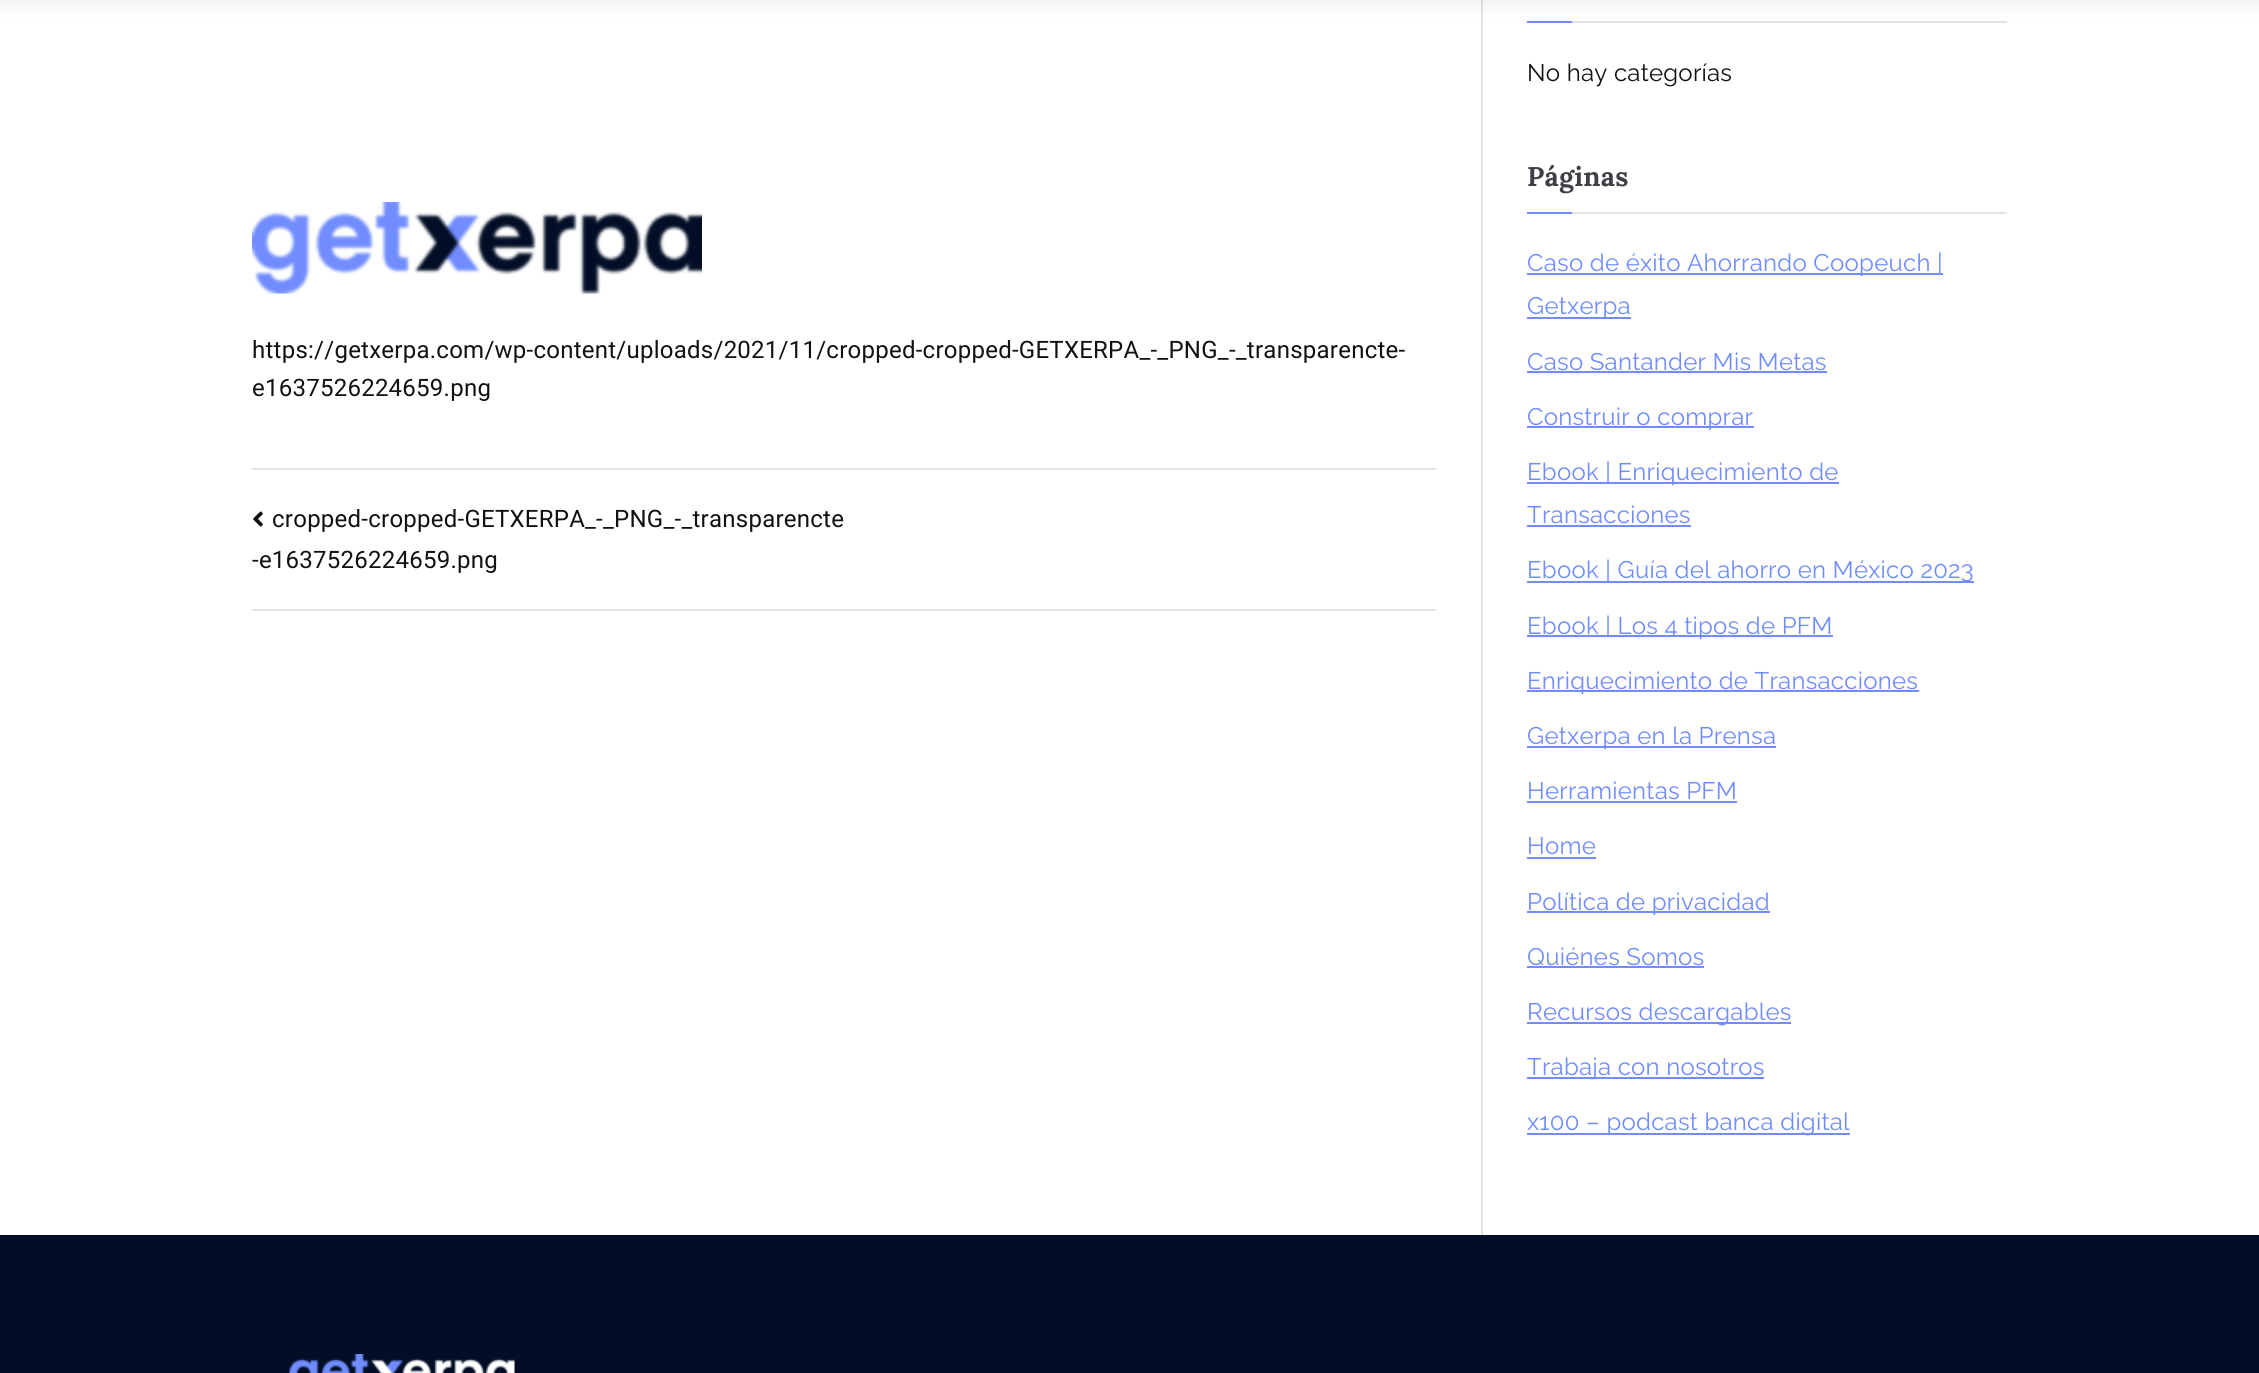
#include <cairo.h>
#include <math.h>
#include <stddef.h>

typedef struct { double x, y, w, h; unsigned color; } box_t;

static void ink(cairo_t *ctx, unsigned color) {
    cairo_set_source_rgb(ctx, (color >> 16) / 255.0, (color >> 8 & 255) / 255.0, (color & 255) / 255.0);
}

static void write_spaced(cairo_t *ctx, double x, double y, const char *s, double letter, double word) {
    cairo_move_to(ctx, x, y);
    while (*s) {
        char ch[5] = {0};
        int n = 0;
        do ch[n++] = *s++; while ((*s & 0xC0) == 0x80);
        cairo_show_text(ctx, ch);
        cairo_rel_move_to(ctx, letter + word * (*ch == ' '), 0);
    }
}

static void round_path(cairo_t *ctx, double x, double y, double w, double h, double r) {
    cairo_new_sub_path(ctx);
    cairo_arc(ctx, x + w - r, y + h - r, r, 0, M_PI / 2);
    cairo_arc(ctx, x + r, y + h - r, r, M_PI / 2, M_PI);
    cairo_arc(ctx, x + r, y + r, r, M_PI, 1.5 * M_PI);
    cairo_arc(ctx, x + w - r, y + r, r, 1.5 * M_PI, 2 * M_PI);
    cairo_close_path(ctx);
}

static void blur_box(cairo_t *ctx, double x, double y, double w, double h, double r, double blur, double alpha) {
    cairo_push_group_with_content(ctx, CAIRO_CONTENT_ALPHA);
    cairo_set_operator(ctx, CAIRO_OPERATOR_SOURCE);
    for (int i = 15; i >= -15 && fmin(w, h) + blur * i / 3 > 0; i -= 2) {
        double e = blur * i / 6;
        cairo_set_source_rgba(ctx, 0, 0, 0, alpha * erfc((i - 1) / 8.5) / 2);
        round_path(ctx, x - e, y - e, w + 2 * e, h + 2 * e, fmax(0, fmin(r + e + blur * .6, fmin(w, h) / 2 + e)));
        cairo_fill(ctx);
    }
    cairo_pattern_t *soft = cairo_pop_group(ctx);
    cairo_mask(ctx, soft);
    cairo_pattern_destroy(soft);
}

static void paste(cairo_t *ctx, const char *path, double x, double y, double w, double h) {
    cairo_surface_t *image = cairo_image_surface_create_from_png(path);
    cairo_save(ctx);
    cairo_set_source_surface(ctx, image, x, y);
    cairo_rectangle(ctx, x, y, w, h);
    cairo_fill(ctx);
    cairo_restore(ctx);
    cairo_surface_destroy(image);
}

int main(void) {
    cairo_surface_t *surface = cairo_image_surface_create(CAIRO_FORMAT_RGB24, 2259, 1373);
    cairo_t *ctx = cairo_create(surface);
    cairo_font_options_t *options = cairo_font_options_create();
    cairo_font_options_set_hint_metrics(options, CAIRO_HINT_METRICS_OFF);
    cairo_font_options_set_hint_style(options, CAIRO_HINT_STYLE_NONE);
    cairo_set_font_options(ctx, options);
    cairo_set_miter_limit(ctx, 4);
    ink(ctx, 0xFFFFFF);
    cairo_paint(ctx);
    {
        static const box_t items[] = {
            {1481, 0, 2, 1235, 0xE4E4E7},
            {1572, 21, 435, 2, 0xE4E4E7},
            {1527, 21, 45, 2, 0x718CFF},
        };
        for (size_t i = 0; i < sizeof items / sizeof *items; i++) {
            ink(ctx, items[i].color);
            cairo_rectangle(ctx, items[i].x, items[i].y, items[i].w, items[i].h);
            cairo_fill(ctx);
        }
    }
    ink(ctx, 0x000000);
    blur_box(ctx, 0, -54, 2259, 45, 0, 18, 0.15);
    paste(ctx, "media/1.png", 252, 202, 450, 92);
    cairo_select_font_face(ctx, "Roboto", CAIRO_FONT_SLANT_NORMAL, CAIRO_FONT_WEIGHT_NORMAL);
    cairo_set_font_size(ctx, 24);
    ink(ctx, 0x111111);
    write_spaced(ctx, 252, 358, "https://getxerpa.com/wp-content/uploads/2021/11/cropped-cropped-GETXERPA_-_PNG_-_transparencte-", 0.25, 0);
    write_spaced(ctx, 252, 396, "e1637526224659.png", 0.25, 0);
    ink(ctx, 0xE4E4E7);
    cairo_rectangle(ctx, 252, 468, 1184, 2);
    cairo_fill(ctx);
    cairo_rectangle(ctx, 252, 609, 1184, 2);
    cairo_fill(ctx);
    paste(ctx, "media/2.png", 253, 511, 10, 16);
    ink(ctx, 0x111111);
    write_spaced(ctx, 272, 527, "cropped-cropped-GETXERPA_-_PNG_-_transparencte", 0.25, 0);
    write_spaced(ctx, 252, 568, "-e1637526224659.png", 0.25, 0);
    cairo_select_font_face(ctx, "Raleway", CAIRO_FONT_SLANT_NORMAL, CAIRO_FONT_WEIGHT_NORMAL);
    write_spaced(ctx, 1527, 81, "No hay categorías", 0.25, 0);
    ink(ctx, 0xE4E4E7);
    cairo_rectangle(ctx, 1572, 212, 435, 2);
    cairo_fill(ctx);
    cairo_select_font_face(ctx, "Lora", CAIRO_FONT_SLANT_NORMAL, CAIRO_FONT_WEIGHT_BOLD);
    cairo_set_font_size(ctx, 27);
    ink(ctx, 0x3F3F46);
    write_spaced(ctx, 1527, 186, "Páginas", 0.25, 0);
    ink(ctx, 0x718CFF);
    cairo_rectangle(ctx, 1527, 212, 45, 2);
    cairo_fill(ctx);
    cairo_rectangle(ctx, 1527, 273, 416, 2);
    cairo_fill(ctx);
    cairo_select_font_face(ctx, "Raleway", CAIRO_FONT_SLANT_NORMAL, CAIRO_FONT_WEIGHT_NORMAL);
    cairo_set_font_size(ctx, 24);
    write_spaced(ctx, 1527, 271, "Caso de éxito Ahorrando Coopeuch |", 0.25, 0);
    cairo_rectangle(ctx, 1527, 317, 104, 2);
    cairo_fill(ctx);
    write_spaced(ctx, 1527, 314, "Getxerpa", 0.25, 0);
    write_spaced(ctx, 1527, 370, "Caso Santander Mis Metas", 0.25, 0);
    cairo_rectangle(ctx, 1527, 371, 300, 2);
    cairo_fill(ctx);
    cairo_rectangle(ctx, 1527, 426, 227, 2);
    cairo_fill(ctx);
    write_spaced(ctx, 1527, 425, "Construir o comprar", 0.25, 0);
    cairo_rectangle(ctx, 1527, 482, 312, 2);
    cairo_fill(ctx);
    write_spaced(ctx, 1527, 480, "Ebook | Enriquecimiento de", 0.25, 0);
    write_spaced(ctx, 1527, 523, "Transacciones", 0.25, 0);
    cairo_rectangle(ctx, 1527, 525, 164, 2);
    cairo_fill(ctx);
    cairo_rectangle(ctx, 1527, 581, 447, 2);
    cairo_fill(ctx);
    write_spaced(ctx, 1527, 578, "Ebook | Guía del ahorro en México 2023", 0.25, 0);
    cairo_rectangle(ctx, 1527, 635, 306, 2);
    cairo_fill(ctx);
    write_spaced(ctx, 1527, 634, "Ebook | Los 4 tipos de PFM", 0.25, 0);
    cairo_rectangle(ctx, 1527, 690, 392, 2);
    cairo_fill(ctx);
    write_spaced(ctx, 1527, 689, "Enriquecimiento de Transacciones", 0.25, 0);
    cairo_rectangle(ctx, 1527, 746, 249, 2);
    cairo_fill(ctx);
    write_spaced(ctx, 1527, 744, "Getxerpa en la Prensa", 0.25, 0);
    write_spaced(ctx, 1527, 799, "Herramientas PFM", 0.25, 0);
    cairo_rectangle(ctx, 1527, 801, 210, 2);
    cairo_fill(ctx);
    write_spaced(ctx, 1527, 854, "Home", 0.25, 0);
    cairo_rectangle(ctx, 1527, 857, 69, 2);
    cairo_fill(ctx);
    cairo_rectangle(ctx, 1527, 911, 243, 2);
    cairo_fill(ctx);
    write_spaced(ctx, 1527, 910, "Política de privacidad", 0.25, 0);
    write_spaced(ctx, 1527, 965, "Quiénes Somos", 0.25, 0);
    cairo_rectangle(ctx, 1527, 966, 177, 2);
    cairo_fill(ctx);
    cairo_rectangle(ctx, 1527, 1022, 264, 2);
    cairo_fill(ctx);
    write_spaced(ctx, 1527, 1020, "Recursos descargables", 0.25, 0);
    cairo_rectangle(ctx, 1527, 1077, 237, 2);
    cairo_fill(ctx);
    write_spaced(ctx, 1527, 1075, "Trabaja con nosotros", 0.25, 0);
    cairo_rectangle(ctx, 1527, 1133, 323, 2);
    cairo_fill(ctx);
    write_spaced(ctx, 1527, 1130, "x100 – podcast banca digital", 0.25, 0);
    ink(ctx, 0x020E26);
    cairo_rectangle(ctx, 0, 1235, 2259, 138);
    cairo_fill(ctx);
    paste(ctx, "media/3.png", 289, 1354, 226, 19);
    cairo_surface_write_to_png(surface, "image.png");
    cairo_font_options_destroy(options);
    cairo_destroy(ctx);
    cairo_surface_destroy(surface);
    return 0;
}
